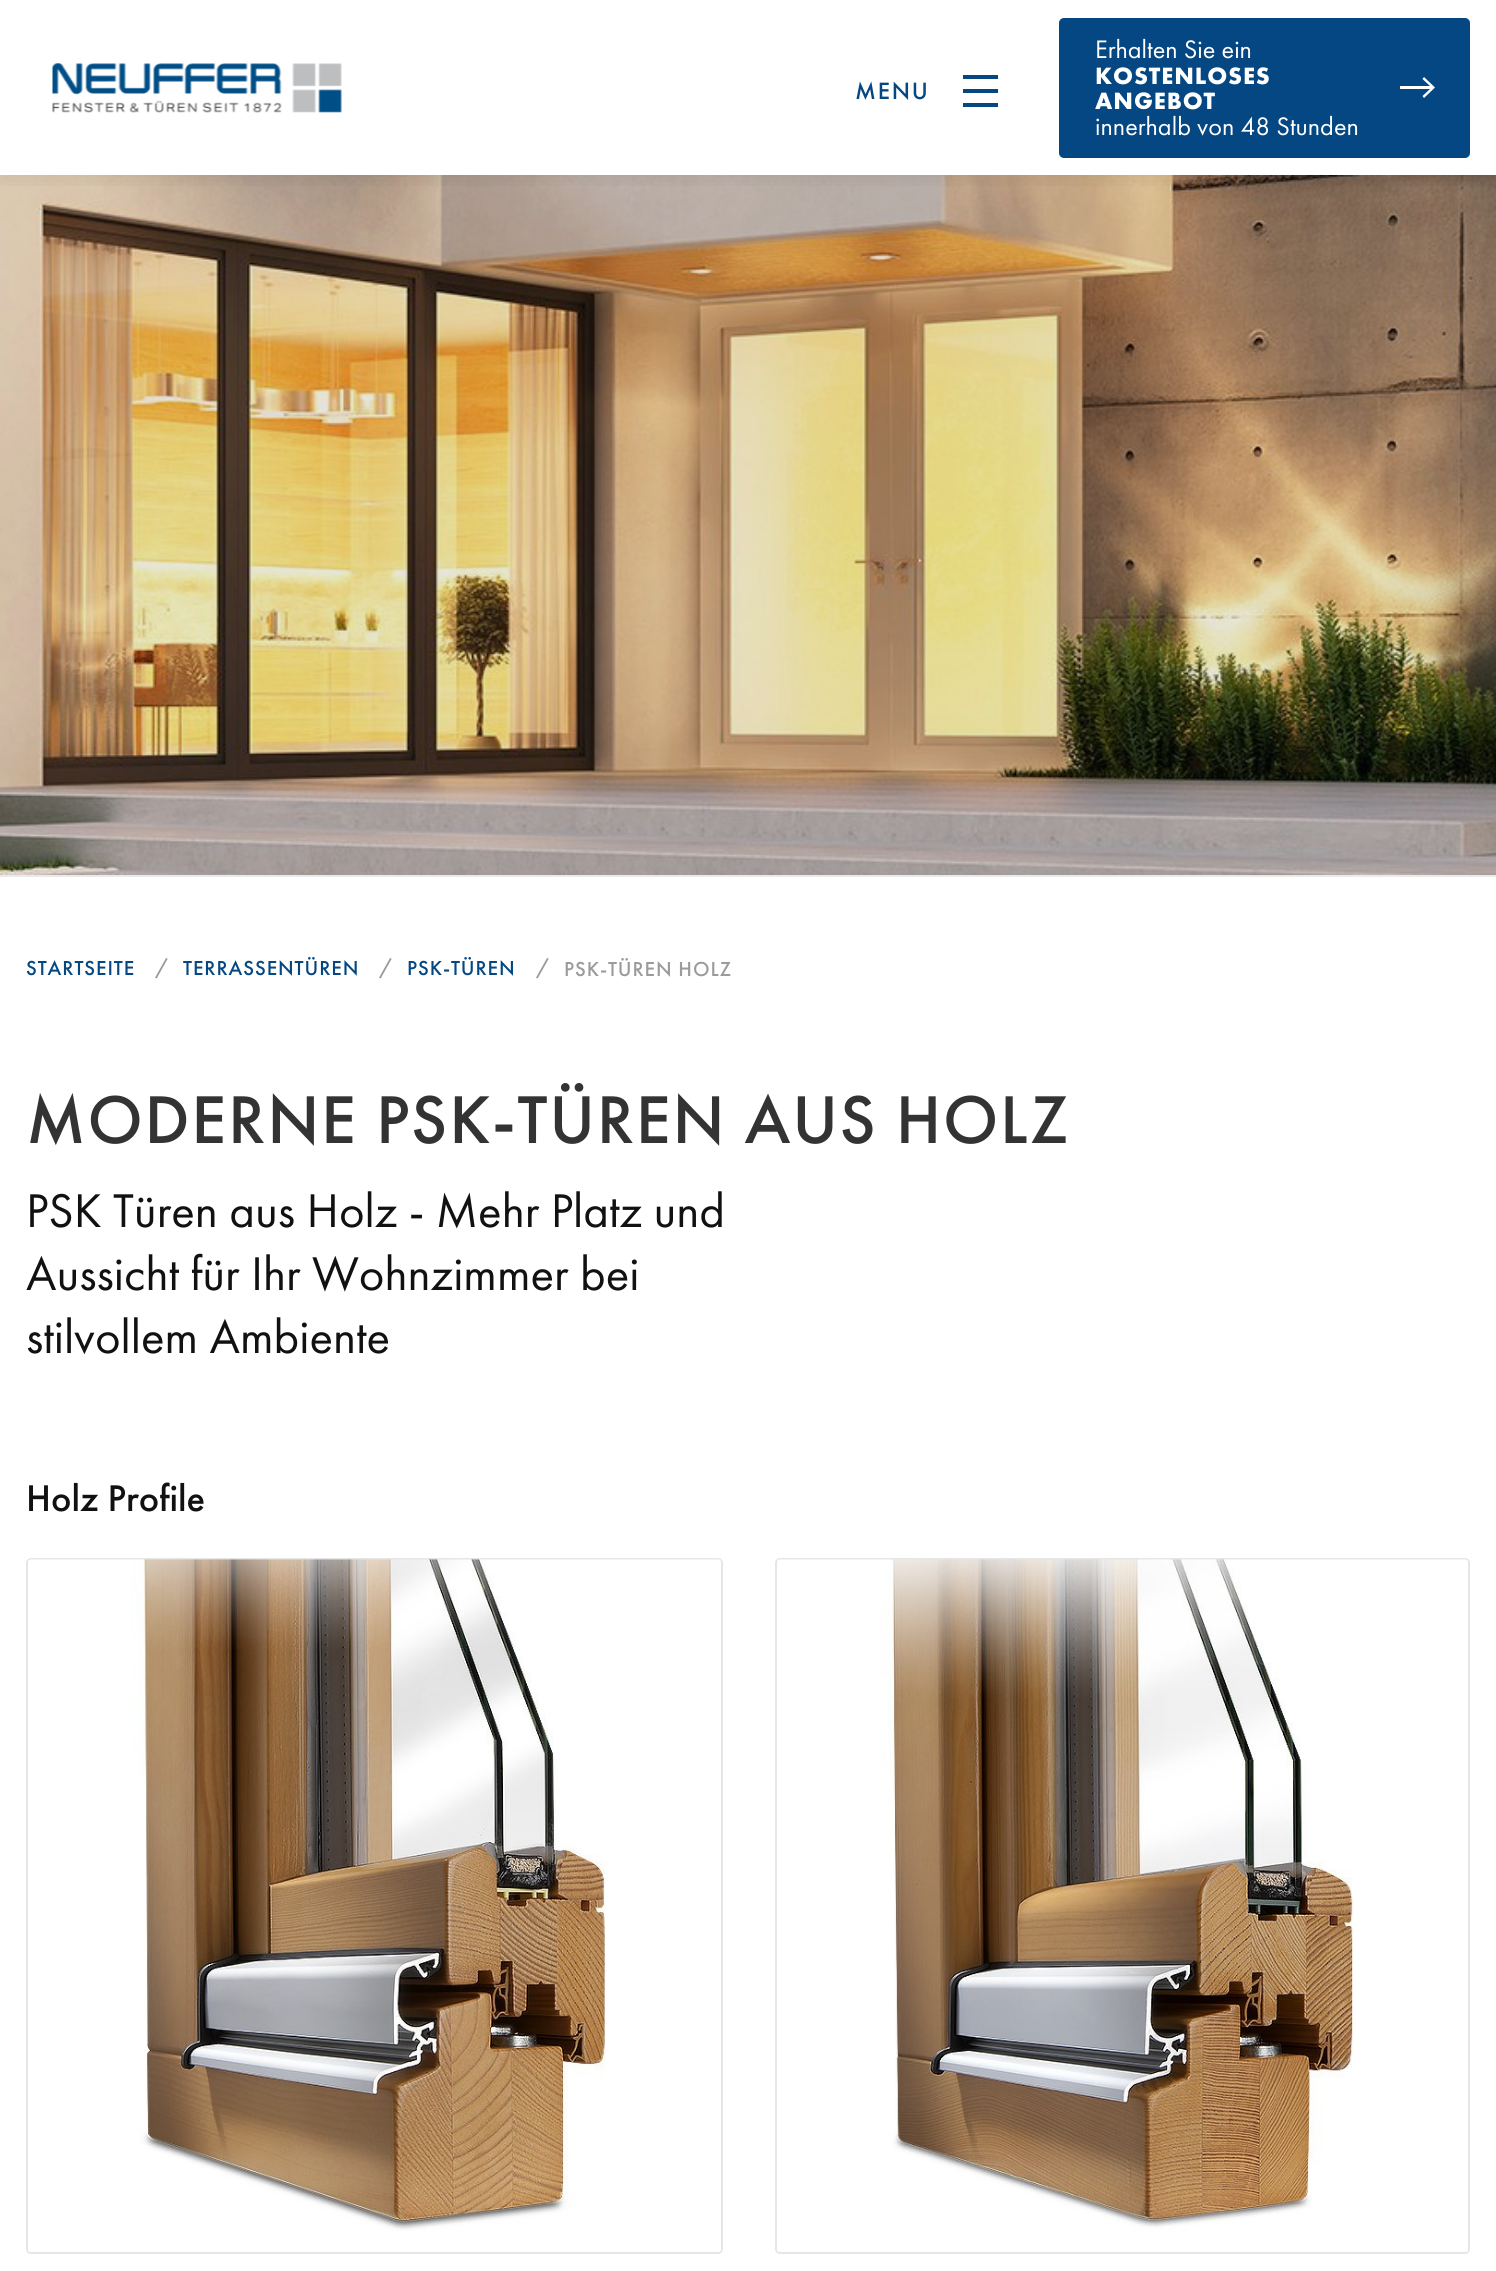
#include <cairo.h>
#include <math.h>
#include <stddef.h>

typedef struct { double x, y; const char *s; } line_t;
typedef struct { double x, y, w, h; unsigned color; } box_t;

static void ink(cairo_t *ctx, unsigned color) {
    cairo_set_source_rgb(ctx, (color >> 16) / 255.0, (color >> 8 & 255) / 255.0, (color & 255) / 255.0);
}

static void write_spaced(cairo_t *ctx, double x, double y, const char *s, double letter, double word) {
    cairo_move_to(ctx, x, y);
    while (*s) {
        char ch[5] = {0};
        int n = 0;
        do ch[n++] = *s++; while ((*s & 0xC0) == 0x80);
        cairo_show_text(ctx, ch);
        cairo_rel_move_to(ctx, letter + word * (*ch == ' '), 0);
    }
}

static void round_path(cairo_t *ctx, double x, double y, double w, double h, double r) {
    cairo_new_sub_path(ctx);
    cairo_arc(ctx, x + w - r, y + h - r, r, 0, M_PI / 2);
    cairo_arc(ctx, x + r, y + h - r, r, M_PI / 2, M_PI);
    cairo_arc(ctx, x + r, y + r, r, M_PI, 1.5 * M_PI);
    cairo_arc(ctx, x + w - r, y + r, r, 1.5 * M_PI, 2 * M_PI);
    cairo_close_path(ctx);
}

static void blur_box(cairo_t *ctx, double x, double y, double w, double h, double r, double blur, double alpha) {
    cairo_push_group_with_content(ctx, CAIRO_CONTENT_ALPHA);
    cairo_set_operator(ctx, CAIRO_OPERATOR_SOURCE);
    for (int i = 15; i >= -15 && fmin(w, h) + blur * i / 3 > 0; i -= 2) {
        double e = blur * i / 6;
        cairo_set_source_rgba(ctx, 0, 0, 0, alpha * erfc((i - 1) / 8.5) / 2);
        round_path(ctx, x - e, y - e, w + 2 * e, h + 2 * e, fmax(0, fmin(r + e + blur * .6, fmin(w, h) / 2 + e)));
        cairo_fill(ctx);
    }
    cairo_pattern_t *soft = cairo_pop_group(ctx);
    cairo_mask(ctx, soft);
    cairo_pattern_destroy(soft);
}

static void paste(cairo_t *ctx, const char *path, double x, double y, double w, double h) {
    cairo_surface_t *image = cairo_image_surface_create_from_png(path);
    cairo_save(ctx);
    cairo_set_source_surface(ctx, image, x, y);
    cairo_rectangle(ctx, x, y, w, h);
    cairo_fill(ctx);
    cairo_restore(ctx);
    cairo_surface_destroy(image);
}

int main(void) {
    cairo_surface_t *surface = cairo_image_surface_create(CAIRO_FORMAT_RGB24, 1496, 2271);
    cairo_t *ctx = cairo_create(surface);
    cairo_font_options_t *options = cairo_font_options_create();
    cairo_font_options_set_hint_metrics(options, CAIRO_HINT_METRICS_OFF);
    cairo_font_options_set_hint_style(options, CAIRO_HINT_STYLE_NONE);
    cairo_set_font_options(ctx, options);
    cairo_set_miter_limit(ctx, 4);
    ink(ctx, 0xFFFFFF);
    cairo_paint(ctx);
    ink(ctx, 0xEAEAEA);
    cairo_rectangle(ctx, 0, 875, 1496, 2);
    cairo_fill(ctx);
    paste(ctx, "media/2.png", 0, 175, 1496, 700);
    cairo_save(ctx);
    cairo_rectangle(ctx, 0, 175, 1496, 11);
    cairo_clip(ctx);
    ink(ctx, 0x000000);
    blur_box(ctx, 0, 0, 1496, 175, 0, 13, 0.1);
    cairo_restore(ctx);
    paste(ctx, "media/1.png", 52, 63, 290, 50);
    cairo_select_font_face(ctx, "Futura PT Medium", CAIRO_FONT_SLANT_NORMAL, CAIRO_FONT_WEIGHT_NORMAL);
    cairo_set_font_size(ctx, 24.5);
    ink(ctx, 0x044782);
    write_spaced(ctx, 855, 99, "MENU", 1.75, 0);
    {
        static const box_t items[] = {
            {963, 75, 35, 4, 0x044782},
            {963, 89, 35, 4, 0x044782},
            {963, 103, 35, 4, 0x044782},
        };
        for (size_t i = 0; i < sizeof items / sizeof *items; i++) {
            ink(ctx, items[i].color);
            cairo_rectangle(ctx, items[i].x, items[i].y, items[i].w, items[i].h);
            cairo_fill(ctx);
        }
    }
    round_path(ctx, 1059, 18, 411, 140, 5);
    cairo_fill(ctx);
    cairo_select_font_face(ctx, "Futura PT", CAIRO_FONT_SLANT_NORMAL, CAIRO_FONT_WEIGHT_NORMAL);
    cairo_set_font_size(ctx, 26.25);
    ink(ctx, 0xFFFFFF);
    cairo_move_to(ctx, 1095, 58);
    cairo_show_text(ctx, "Erhalten Sie ein");
    cairo_select_font_face(ctx, "Futura PT", CAIRO_FONT_SLANT_NORMAL, CAIRO_FONT_WEIGHT_BOLD);
    cairo_set_font_size(ctx, 24.5);
    write_spaced(ctx, 1095, 84, "KOSTENLOSES", 0.9, 0);
    write_spaced(ctx, 1095, 109, "ANGEBOT", 0.9, 0);
    cairo_select_font_face(ctx, "Futura PT", CAIRO_FONT_SLANT_NORMAL, CAIRO_FONT_WEIGHT_NORMAL);
    cairo_set_font_size(ctx, 26.25);
    cairo_move_to(ctx, 1095, 135);
    cairo_show_text(ctx, "innerhalb von 48 Stunden");
    cairo_new_path(ctx);
    cairo_move_to(ctx, 1424, 77);
    cairo_line_to(ctx, 1422.5, 79);
    cairo_line_to(ctx, 1430, 86);
    cairo_line_to(ctx, 1400, 86);
    cairo_line_to(ctx, 1400, 89);
    cairo_line_to(ctx, 1430, 89);
    cairo_line_to(ctx, 1422.5, 96);
    cairo_line_to(ctx, 1424, 98);
    cairo_line_to(ctx, 1435, 87.5);
    cairo_close_path(ctx);
    cairo_fill(ctx);
    cairo_select_font_face(ctx, "Futura PT Medium", CAIRO_FONT_SLANT_NORMAL, CAIRO_FONT_WEIGHT_NORMAL);
    cairo_set_font_size(ctx, 21);
    ink(ctx, 0x044782);
    write_spaced(ctx, 26, 975, "STARTSEITE", 0.9, 0);
    ink(ctx, 0x9B9B9B);
    write_spaced(ctx, 155, 974, "/", 0.9, 0);
    ink(ctx, 0x044782);
    write_spaced(ctx, 183, 975, "TERRASSENTÜREN", 0.9, 0);
    ink(ctx, 0x9B9B9B);
    write_spaced(ctx, 379, 974, "/", 0.9, 0);
    ink(ctx, 0x044782);
    write_spaced(ctx, 407, 975, "PSK-TÜREN", 0.9, 0);
    ink(ctx, 0x9B9B9B);
    write_spaced(ctx, 536, 974, "/", 0.9, 0);
    write_spaced(ctx, 564, 976, "PSK-TÜREN HOLZ", 0.9, 0);
    cairo_set_font_size(ctx, 70);
    ink(ctx, 0x333333);
    write_spaced(ctx, 26, 1143, "MODERNE PSK-TÜREN AUS HOLZ", 1.75, 0);
    cairo_select_font_face(ctx, "Futura PT", CAIRO_FONT_SLANT_NORMAL, CAIRO_FONT_WEIGHT_NORMAL);
    cairo_set_font_size(ctx, 49);
    ink(ctx, 0x111111);
    {
        static const line_t items[] = {
            {26, 1227, "PSK Türen aus Holz - Mehr Platz und"},
            {26, 1290, "Aussicht für Ihr Wohnzimmer bei"},
            {26, 1353, "stilvollem Ambiente"},
        };
        for (size_t i = 0; i < sizeof items / sizeof *items; i++) {
            cairo_move_to(ctx, items[i].x, items[i].y);
            cairo_show_text(ctx, items[i].s);
        }
    }
    cairo_select_font_face(ctx, "Futura PT Medium", CAIRO_FONT_SLANT_NORMAL, CAIRO_FONT_WEIGHT_NORMAL);
    cairo_set_font_size(ctx, 38.5);
    cairo_move_to(ctx, 26, 1511);
    cairo_show_text(ctx, "Holz Profile");
    round_path(ctx, 27, 1559, 695, 694, 4);
    ink(ctx, 0xE6E6E6);
    cairo_stroke(ctx);
    paste(ctx, "media/3.png", 28, 1559, 693, 693);
    round_path(ctx, 776, 1559, 693, 694, 4);
    cairo_stroke(ctx);
    paste(ctx, "media/4.png", 777, 1559, 691, 693);
    cairo_surface_write_to_png(surface, "image.png");
    cairo_font_options_destroy(options);
    cairo_destroy(ctx);
    cairo_surface_destroy(surface);
    return 0;
}
